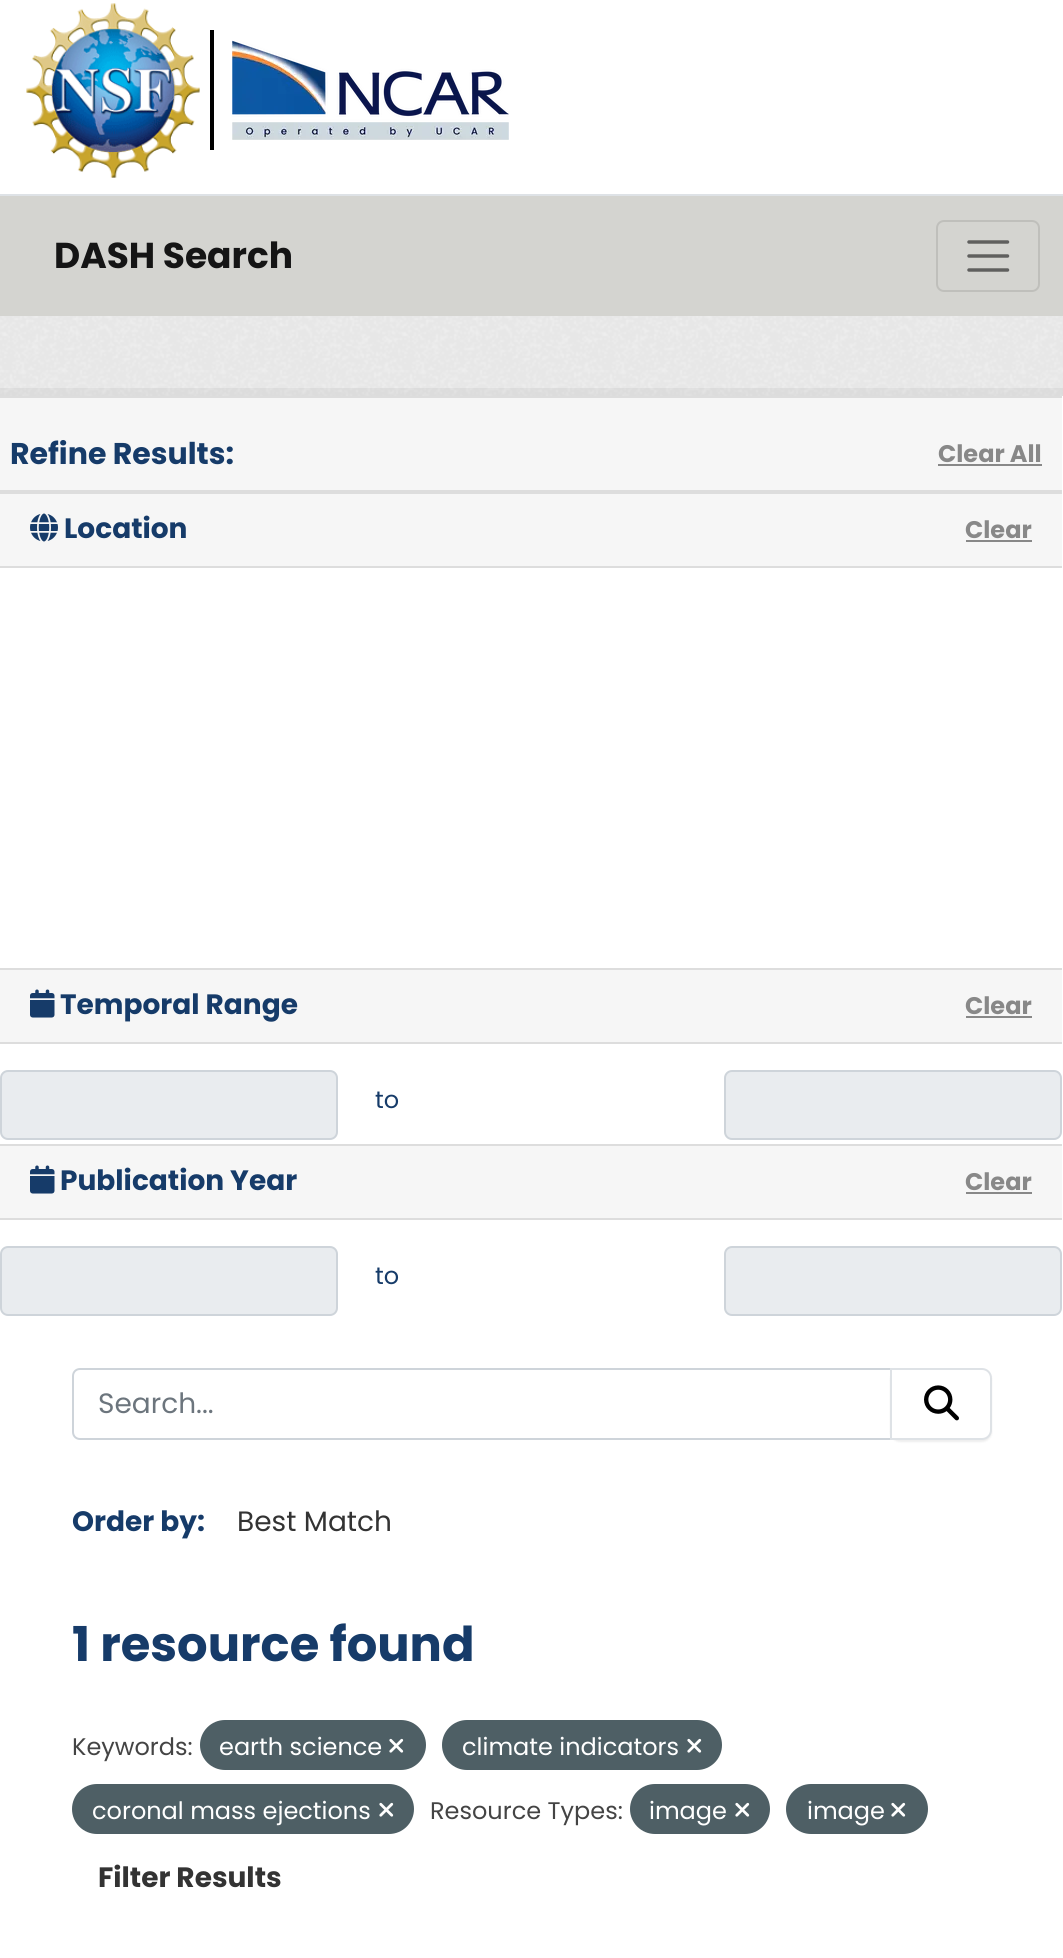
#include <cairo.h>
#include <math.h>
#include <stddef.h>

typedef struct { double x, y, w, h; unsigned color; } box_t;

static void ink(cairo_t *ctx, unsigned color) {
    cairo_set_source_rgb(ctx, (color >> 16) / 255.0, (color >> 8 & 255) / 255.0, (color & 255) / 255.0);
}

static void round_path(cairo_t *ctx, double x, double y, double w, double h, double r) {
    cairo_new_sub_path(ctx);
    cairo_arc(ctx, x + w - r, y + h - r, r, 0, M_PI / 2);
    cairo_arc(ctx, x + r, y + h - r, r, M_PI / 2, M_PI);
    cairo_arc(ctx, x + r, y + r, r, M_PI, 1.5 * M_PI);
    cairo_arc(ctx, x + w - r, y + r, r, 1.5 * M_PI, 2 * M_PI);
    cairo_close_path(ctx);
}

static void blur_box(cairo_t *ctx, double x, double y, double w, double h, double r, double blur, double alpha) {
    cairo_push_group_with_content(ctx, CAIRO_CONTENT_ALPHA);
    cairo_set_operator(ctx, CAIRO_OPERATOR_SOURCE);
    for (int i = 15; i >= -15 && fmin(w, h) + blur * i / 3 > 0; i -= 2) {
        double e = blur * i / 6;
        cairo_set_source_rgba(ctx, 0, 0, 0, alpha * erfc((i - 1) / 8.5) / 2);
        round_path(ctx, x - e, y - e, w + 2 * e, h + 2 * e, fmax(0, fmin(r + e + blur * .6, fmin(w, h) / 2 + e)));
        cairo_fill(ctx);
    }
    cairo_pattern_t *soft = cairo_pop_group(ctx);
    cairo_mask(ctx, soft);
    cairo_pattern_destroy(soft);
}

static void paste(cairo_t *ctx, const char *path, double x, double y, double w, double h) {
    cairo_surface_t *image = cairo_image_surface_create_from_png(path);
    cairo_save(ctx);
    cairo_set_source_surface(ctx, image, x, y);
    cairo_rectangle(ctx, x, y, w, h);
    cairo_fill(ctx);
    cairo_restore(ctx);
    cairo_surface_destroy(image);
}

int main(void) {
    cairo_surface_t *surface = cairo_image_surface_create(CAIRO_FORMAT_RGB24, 1063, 1958);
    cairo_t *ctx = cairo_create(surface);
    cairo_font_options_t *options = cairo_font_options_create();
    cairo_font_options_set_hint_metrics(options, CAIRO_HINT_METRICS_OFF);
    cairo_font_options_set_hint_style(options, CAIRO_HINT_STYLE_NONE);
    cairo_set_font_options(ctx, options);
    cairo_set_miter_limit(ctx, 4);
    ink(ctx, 0xFFFFFF);
    cairo_paint(ctx);
    paste(ctx, "media/1.png", 26, 3, 174, 175);
    ink(ctx, 0x000000);
    cairo_rectangle(ctx, 210, 30, 4, 120);
    cairo_fill(ctx);
    paste(ctx, "media/2.png", 232, 40, 277, 100);
    ink(ctx, 0xD4D4D0);
    cairo_rectangle(ctx, 0, 196, 1063, 120);
    cairo_fill(ctx);
    ink(ctx, 0xDEE2E6);
    cairo_rectangle(ctx, 0, 194, 1063, 2);
    cairo_fill(ctx);
    cairo_select_font_face(ctx, "Poppins", CAIRO_FONT_SLANT_NORMAL, CAIRO_FONT_WEIGHT_BOLD);
    cairo_set_font_size(ctx, 36);
    ink(ctx, 0x151515);
    cairo_move_to(ctx, 54, 268);
    cairo_show_text(ctx, "DASH Search");
    round_path(ctx, 937, 221, 102, 70, 7);
    ink(ctx, 0xBFBFBB);
    cairo_stroke(ctx);
    cairo_new_path(ctx);
    cairo_move_to(ctx, 969, 242);
    cairo_line_to(ctx, 1007.5, 242);
    cairo_move_to(ctx, 969, 256);
    cairo_line_to(ctx, 1007.5, 256);
    cairo_move_to(ctx, 969, 270);
    cairo_line_to(ctx, 1007.5, 270);
    ink(ctx, 0x5F5F5E);
    cairo_set_line_width(ctx, 3.5);
    cairo_set_line_cap(ctx, CAIRO_LINE_CAP_ROUND);
    cairo_stroke(ctx);
    ink(ctx, 0xEEEEEE);
    cairo_rectangle(ctx, 0, 316, 1063, 80);
    cairo_fill(ctx);
    paste(ctx, "media/3.png", 0, 316, 1063, 80);
    cairo_rectangle(ctx, -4, 392, 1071, 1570);
    cairo_set_source_rgba(ctx, 0, 0, 0, 0.05);
    cairo_set_line_width(ctx, 8);
    cairo_set_line_cap(ctx, CAIRO_LINE_CAP_BUTT);
    cairo_stroke(ctx);
    {
        static const box_t items[] = {
            {0, 398, 1062, 92, 0xF6F6F6},
            {0, 396, 1062, 2, 0xDDDDDD},
            {0, 490, 1062, 4, 0xDDDDDD},
        };
        for (size_t i = 0; i < sizeof items / sizeof *items; i++) {
            ink(ctx, items[i].color);
            cairo_rectangle(ctx, items[i].x, items[i].y, items[i].w, items[i].h);
            cairo_fill(ctx);
        }
    }
    cairo_set_font_size(ctx, 30);
    ink(ctx, 0x163B69);
    cairo_move_to(ctx, 10, 464);
    cairo_show_text(ctx, "Refine Results:");
    cairo_set_font_size(ctx, 24);
    ink(ctx, 0x888888);
    cairo_move_to(ctx, 938, 462);
    cairo_show_text(ctx, "Clear All");
    {
        static const box_t items[] = {
            {938, 464, 104, 2, 0x888888},
            {0, 494, 1062, 72, 0xF6F6F6},
            {0, 566, 1062, 2, 0xDDDDDD},
        };
        for (size_t i = 0; i < sizeof items / sizeof *items; i++) {
            ink(ctx, items[i].color);
            cairo_rectangle(ctx, items[i].x, items[i].y, items[i].w, items[i].h);
            cairo_fill(ctx);
        }
    }
    paste(ctx, "media/4.png", 30, 513, 28, 29);
    cairo_set_font_size(ctx, 28);
    ink(ctx, 0x163B69);
    cairo_move_to(ctx, 64, 538);
    cairo_show_text(ctx, "Location");
    cairo_set_font_size(ctx, 24);
    ink(ctx, 0x888888);
    cairo_move_to(ctx, 965, 538);
    cairo_show_text(ctx, "Clear");
    {
        static const box_t items[] = {
            {966, 540, 66, 2, 0x888888},
            {0, 970, 1062, 72, 0xF6F6F6},
            {0, 968, 1062, 2, 0xDDDDDD},
            {0, 1042, 1062, 2, 0xDDDDDD},
        };
        for (size_t i = 0; i < sizeof items / sizeof *items; i++) {
            ink(ctx, items[i].color);
            cairo_rectangle(ctx, items[i].x, items[i].y, items[i].w, items[i].h);
            cairo_fill(ctx);
        }
    }
    paste(ctx, "media/5.png", 30, 989, 25, 29);
    cairo_set_font_size(ctx, 28);
    ink(ctx, 0x163B69);
    cairo_move_to(ctx, 60, 1014);
    cairo_show_text(ctx, "Temporal Range");
    cairo_set_font_size(ctx, 24);
    ink(ctx, 0x888888);
    cairo_move_to(ctx, 965, 1014);
    cairo_show_text(ctx, "Clear");
    cairo_rectangle(ctx, 966, 1016, 66, 2);
    cairo_fill(ctx);
    ink(ctx, 0xE9ECEF);
    round_path(ctx, 1, 1071, 336, 68, 7);
    cairo_fill_preserve(ctx);
    ink(ctx, 0xCED4DA);
    cairo_set_line_width(ctx, 2);
    cairo_stroke(ctx);
    cairo_select_font_face(ctx, "Poppins", CAIRO_FONT_SLANT_NORMAL, CAIRO_FONT_WEIGHT_NORMAL);
    ink(ctx, 0x163B69);
    cairo_move_to(ctx, 375, 1108);
    cairo_show_text(ctx, "to");
    ink(ctx, 0xE9ECEF);
    round_path(ctx, 725, 1071, 336, 68, 7);
    cairo_fill_preserve(ctx);
    ink(ctx, 0xCED4DA);
    cairo_stroke(ctx);
    {
        static const box_t items[] = {
            {0, 1146, 1062, 72, 0xF6F6F6},
            {0, 1144, 1062, 2, 0xDDDDDD},
            {0, 1218, 1062, 2, 0xDDDDDD},
        };
        for (size_t i = 0; i < sizeof items / sizeof *items; i++) {
            ink(ctx, items[i].color);
            cairo_rectangle(ctx, items[i].x, items[i].y, items[i].w, items[i].h);
            cairo_fill(ctx);
        }
    }
    paste(ctx, "media/5.png", 30, 1165, 25, 29);
    cairo_select_font_face(ctx, "Poppins", CAIRO_FONT_SLANT_NORMAL, CAIRO_FONT_WEIGHT_BOLD);
    cairo_set_font_size(ctx, 28);
    ink(ctx, 0x163B69);
    cairo_move_to(ctx, 60, 1190);
    cairo_show_text(ctx, "Publication Year");
    cairo_set_font_size(ctx, 24);
    ink(ctx, 0x888888);
    cairo_move_to(ctx, 965, 1190);
    cairo_show_text(ctx, "Clear");
    cairo_rectangle(ctx, 966, 1192, 66, 2);
    cairo_fill(ctx);
    ink(ctx, 0xE9ECEF);
    round_path(ctx, 1, 1247, 336, 68, 7);
    cairo_fill_preserve(ctx);
    ink(ctx, 0xCED4DA);
    cairo_stroke(ctx);
    cairo_select_font_face(ctx, "Poppins", CAIRO_FONT_SLANT_NORMAL, CAIRO_FONT_WEIGHT_NORMAL);
    ink(ctx, 0x163B69);
    cairo_move_to(ctx, 375, 1284);
    cairo_show_text(ctx, "to");
    ink(ctx, 0xE9ECEF);
    round_path(ctx, 725, 1247, 336, 68, 7);
    cairo_fill_preserve(ctx);
    ink(ctx, 0xCED4DA);
    cairo_stroke(ctx);
    cairo_new_path(ctx);
    cairo_move_to(ctx, 80, 1369);
    cairo_line_to(ctx, 891, 1369);
    cairo_line_to(ctx, 891, 1439);
    cairo_line_to(ctx, 80, 1439);
    cairo_curve_to(ctx, 76, 1439, 73, 1436, 73, 1432);
    cairo_line_to(ctx, 73, 1376);
    cairo_curve_to(ctx, 73, 1372, 76, 1369, 80, 1369);
    cairo_close_path(ctx);
    cairo_stroke(ctx);
    cairo_set_font_size(ctx, 28);
    ink(ctx, 0x6C757D);
    cairo_move_to(ctx, 98, 1413);
    cairo_show_text(ctx, "Search...");
    ink(ctx, 0x000000);
    blur_box(ctx, 890, 1370, 102, 72, 10, 1, 0.07);
    ink(ctx, 0xFFFFFF);
    cairo_new_path(ctx);
    cairo_move_to(ctx, 891, 1369);
    cairo_line_to(ctx, 982, 1369);
    cairo_curve_to(ctx, 987, 1369, 991, 1373, 991, 1378);
    cairo_line_to(ctx, 991, 1430);
    cairo_curve_to(ctx, 991, 1435, 987, 1439, 982, 1439);
    cairo_line_to(ctx, 891, 1439);
    cairo_close_path(ctx);
    cairo_fill_preserve(ctx);
    ink(ctx, 0xDEE2E6);
    cairo_stroke(ctx);
    paste(ctx, "media/6.png", 924, 1385, 35, 36);
    cairo_select_font_face(ctx, "Poppins", CAIRO_FONT_SLANT_NORMAL, CAIRO_FONT_WEIGHT_BOLD);
    ink(ctx, 0x163B69);
    cairo_move_to(ctx, 72, 1531);
    cairo_show_text(ctx, "Order by:");
    cairo_select_font_face(ctx, "Poppins", CAIRO_FONT_SLANT_NORMAL, CAIRO_FONT_WEIGHT_NORMAL);
    ink(ctx, 0x333333);
    cairo_move_to(ctx, 237, 1531);
    cairo_show_text(ctx, "Best Match");
    cairo_select_font_face(ctx, "Poppins", CAIRO_FONT_SLANT_NORMAL, CAIRO_FONT_WEIGHT_BOLD);
    cairo_set_font_size(ctx, 48);
    ink(ctx, 0x163B69);
    cairo_move_to(ctx, 72, 1661);
    cairo_show_text(ctx, "1 resource found");
    cairo_select_font_face(ctx, "Poppins", CAIRO_FONT_SLANT_NORMAL, CAIRO_FONT_WEIGHT_NORMAL);
    cairo_set_font_size(ctx, 24);
    ink(ctx, 0x444444);
    cairo_move_to(ctx, 72, 1755);
    cairo_show_text(ctx, "Keywords:");
    ink(ctx, 0x4E5F65);
    round_path(ctx, 200, 1720, 226, 50, 25);
    cairo_fill(ctx);
    ink(ctx, 0xFFFFFF);
    cairo_move_to(ctx, 219, 1755);
    cairo_show_text(ctx, "earth science");
    paste(ctx, "media/7.png", 389, 1738, 15, 15);
    ink(ctx, 0x4E5F65);
    round_path(ctx, 442, 1720, 280, 50, 25);
    cairo_fill(ctx);
    ink(ctx, 0xFFFFFF);
    cairo_move_to(ctx, 462, 1755);
    cairo_show_text(ctx, "climate indicators");
    paste(ctx, "media/7.png", 687, 1738, 15, 15);
    ink(ctx, 0x4E5F65);
    round_path(ctx, 72, 1784, 342, 50, 25);
    cairo_fill(ctx);
    ink(ctx, 0xFFFFFF);
    cairo_move_to(ctx, 92, 1819);
    cairo_show_text(ctx, "coronal mass ejections");
    paste(ctx, "media/7.png", 379, 1802, 15, 15);
    ink(ctx, 0x444444);
    cairo_move_to(ctx, 430, 1819);
    cairo_show_text(ctx, "Resource Types:");
    ink(ctx, 0x4E5F65);
    round_path(ctx, 630, 1784, 140, 50, 25);
    cairo_fill(ctx);
    ink(ctx, 0xFFFFFF);
    cairo_move_to(ctx, 649, 1819);
    cairo_show_text(ctx, "image");
    paste(ctx, "media/7.png", 735, 1802, 15, 15);
    ink(ctx, 0x4E5F65);
    round_path(ctx, 786, 1784, 142, 50, 25);
    cairo_fill(ctx);
    ink(ctx, 0xFFFFFF);
    cairo_move_to(ctx, 807, 1819);
    cairo_show_text(ctx, "image");
    paste(ctx, "media/7.png", 891, 1802, 15, 15);
    cairo_select_font_face(ctx, "Poppins", CAIRO_FONT_SLANT_NORMAL, CAIRO_FONT_WEIGHT_BOLD);
    cairo_set_font_size(ctx, 28);
    ink(ctx, 0x333333);
    cairo_move_to(ctx, 98, 1887);
    cairo_show_text(ctx, "Filter Results");
    cairo_surface_write_to_png(surface, "image.png");
    cairo_font_options_destroy(options);
    cairo_destroy(ctx);
    cairo_surface_destroy(surface);
    return 0;
}
